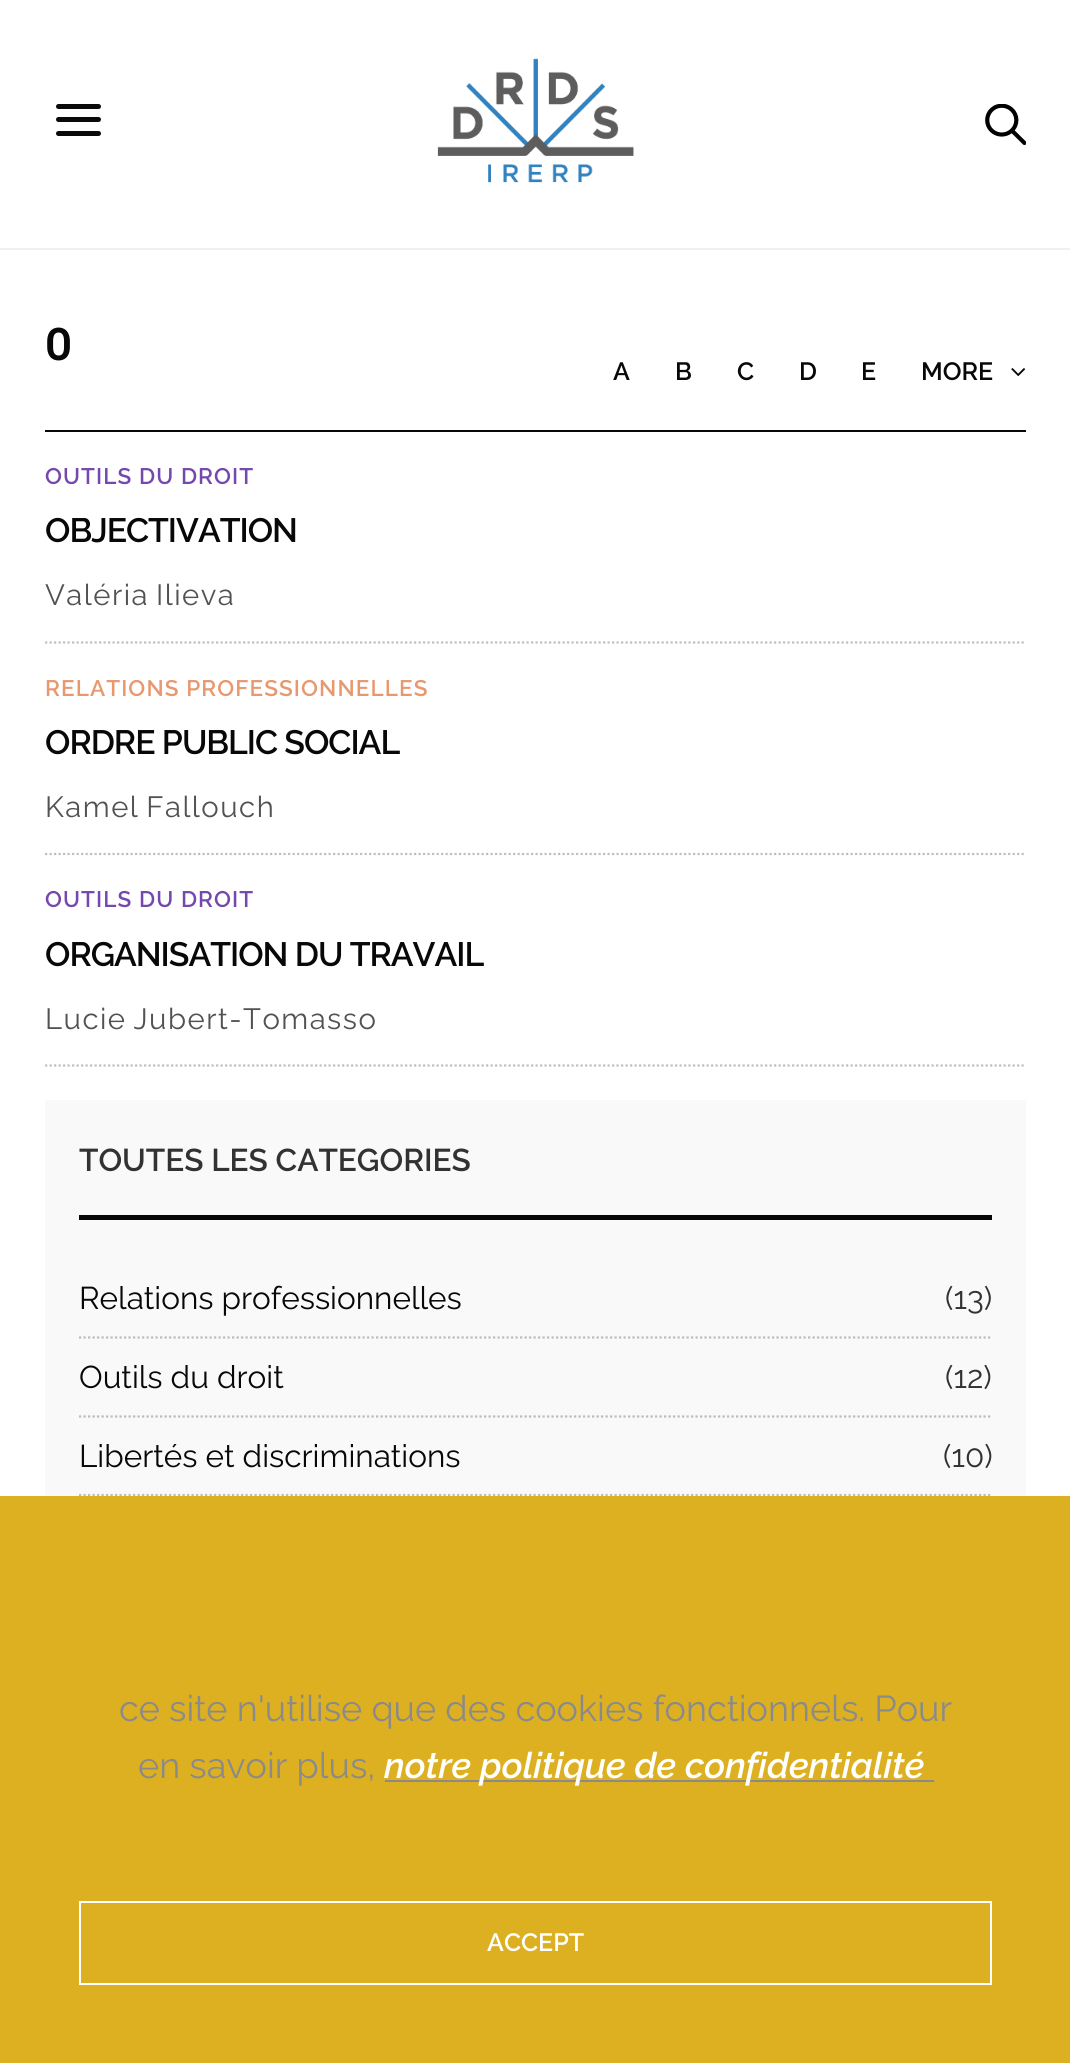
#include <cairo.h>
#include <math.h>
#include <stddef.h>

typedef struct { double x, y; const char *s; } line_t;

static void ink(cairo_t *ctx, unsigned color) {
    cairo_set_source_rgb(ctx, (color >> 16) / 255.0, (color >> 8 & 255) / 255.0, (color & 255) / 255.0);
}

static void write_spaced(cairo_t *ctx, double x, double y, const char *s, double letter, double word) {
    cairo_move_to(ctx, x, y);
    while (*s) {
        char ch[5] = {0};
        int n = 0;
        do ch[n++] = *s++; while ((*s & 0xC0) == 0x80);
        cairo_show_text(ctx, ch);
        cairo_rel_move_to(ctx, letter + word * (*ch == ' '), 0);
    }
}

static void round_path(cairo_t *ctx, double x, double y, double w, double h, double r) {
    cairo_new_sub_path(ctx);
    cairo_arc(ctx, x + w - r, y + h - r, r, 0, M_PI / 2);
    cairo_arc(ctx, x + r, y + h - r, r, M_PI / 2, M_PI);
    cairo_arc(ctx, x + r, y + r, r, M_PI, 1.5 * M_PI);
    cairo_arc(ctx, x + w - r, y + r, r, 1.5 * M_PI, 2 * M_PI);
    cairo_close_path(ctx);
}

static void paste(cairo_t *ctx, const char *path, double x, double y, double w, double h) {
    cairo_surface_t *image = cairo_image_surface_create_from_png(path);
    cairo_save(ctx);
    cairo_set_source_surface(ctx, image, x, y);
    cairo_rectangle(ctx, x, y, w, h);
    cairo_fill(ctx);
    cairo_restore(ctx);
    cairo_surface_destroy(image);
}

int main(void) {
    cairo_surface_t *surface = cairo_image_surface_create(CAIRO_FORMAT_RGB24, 1070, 2063);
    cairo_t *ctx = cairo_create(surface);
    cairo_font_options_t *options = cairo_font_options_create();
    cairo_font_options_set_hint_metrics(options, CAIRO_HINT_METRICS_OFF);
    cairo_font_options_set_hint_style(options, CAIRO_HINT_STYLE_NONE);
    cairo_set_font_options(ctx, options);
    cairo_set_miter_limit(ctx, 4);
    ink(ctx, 0xFFFFFF);
    cairo_paint(ctx);
    ink(ctx, 0x0A0A0A);
    round_path(ctx, 56, 104, 45, 5, 2.5);
    cairo_fill(ctx);
    round_path(ctx, 56, 117, 45, 5, 2.5);
    cairo_fill(ctx);
    round_path(ctx, 56, 131, 45, 5, 2.5);
    cairo_fill(ctx);
    paste(ctx, "media/1.png", 437, 58, 197, 125);
    paste(ctx, "media/2.png", 985, 104, 41, 41);
    ink(ctx, 0xF0F0F0);
    cairo_rectangle(ctx, 0, 248, 1070, 2);
    cairo_fill(ctx);
    ink(ctx, 0x080808);
    cairo_rectangle(ctx, 45, 430, 981, 2);
    cairo_fill(ctx);
    cairo_select_font_face(ctx, "Roboto Condensed SemiBold", CAIRO_FONT_SLANT_NORMAL, CAIRO_FONT_WEIGHT_NORMAL);
    cairo_set_font_size(ctx, 45);
    write_spaced(ctx, 45, 360, "O", -1, 0);
    cairo_select_font_face(ctx, "Raleway SemiBold", CAIRO_FONT_SLANT_NORMAL, CAIRO_FONT_WEIGHT_NORMAL);
    cairo_set_font_size(ctx, 25);
    {
        static const line_t items[] = {
            {613, 380, "A"},
            {675, 380, "B"},
            {737, 380, "C"},
            {799, 380, "D"},
            {861, 380, "E"},
            {921, 380, "MORE"},
        };
        for (size_t i = 0; i < sizeof items / sizeof *items; i++) {
            cairo_move_to(ctx, items[i].x, items[i].y);
            cairo_show_text(ctx, items[i].s);
        }
    }
    paste(ctx, "media/3.png", 1011, 368, 15, 8);
    cairo_set_font_size(ctx, 22.5);
    ink(ctx, 0x7448AD);
    write_spaced(ctx, 45, 484, "OUTILS DU DROIT", 1.1, 0);
    cairo_set_font_size(ctx, 33.75);
    ink(ctx, 0x080808);
    write_spaced(ctx, 45, 542, "OBJECTIVATION", -1, 0);
    cairo_new_path(ctx);
    cairo_move_to(ctx, 45, 642.5);
    cairo_line_to(ctx, 1026, 642.5);
    ink(ctx, 0xBFBFBF);
    cairo_set_line_width(ctx, 2.2);
    cairo_set_dash(ctx, (double[]){2.25, 2.25}, 2, 0);
    cairo_stroke(ctx);
    cairo_select_font_face(ctx, "Raleway", CAIRO_FONT_SLANT_NORMAL, CAIRO_FONT_WEIGHT_NORMAL);
    cairo_set_font_size(ctx, 29.25);
    ink(ctx, 0x525252);
    write_spaced(ctx, 45, 605, "Valéria Ilieva", 1.5, -2);
    cairo_select_font_face(ctx, "Raleway SemiBold", CAIRO_FONT_SLANT_NORMAL, CAIRO_FONT_WEIGHT_NORMAL);
    cairo_set_font_size(ctx, 22.5);
    ink(ctx, 0xE8986F);
    write_spaced(ctx, 45, 696, "RELATIONS PROFESSIONNELLES", 1.1, 0);
    cairo_set_font_size(ctx, 33.75);
    ink(ctx, 0x080808);
    write_spaced(ctx, 45, 754, "ORDRE PUBLIC SOCIAL", -1, 0);
    cairo_new_path(ctx);
    cairo_move_to(ctx, 45, 854);
    cairo_line_to(ctx, 1026, 854);
    ink(ctx, 0xBFBFBF);
    cairo_stroke(ctx);
    cairo_select_font_face(ctx, "Raleway", CAIRO_FONT_SLANT_NORMAL, CAIRO_FONT_WEIGHT_NORMAL);
    cairo_set_font_size(ctx, 29.25);
    ink(ctx, 0x525252);
    write_spaced(ctx, 45, 817, "Kamel Fallouch", 1.5, -2);
    cairo_select_font_face(ctx, "Raleway SemiBold", CAIRO_FONT_SLANT_NORMAL, CAIRO_FONT_WEIGHT_NORMAL);
    cairo_set_font_size(ctx, 22.5);
    ink(ctx, 0x7448AD);
    write_spaced(ctx, 45, 907, "OUTILS DU DROIT", 1.1, 0);
    cairo_set_font_size(ctx, 33.75);
    ink(ctx, 0x080808);
    write_spaced(ctx, 45, 966, "ORGANISATION DU TRAVAIL", -1, 0);
    cairo_new_path(ctx);
    cairo_move_to(ctx, 45, 1065.5);
    cairo_line_to(ctx, 1026, 1065.5);
    ink(ctx, 0xBFBFBF);
    cairo_stroke(ctx);
    cairo_select_font_face(ctx, "Raleway", CAIRO_FONT_SLANT_NORMAL, CAIRO_FONT_WEIGHT_NORMAL);
    cairo_set_font_size(ctx, 29.25);
    ink(ctx, 0x525252);
    write_spaced(ctx, 45, 1029, "Lucie Jubert-Tomasso", 1.5, -2);
    ink(ctx, 0xF9F9F9);
    cairo_rectangle(ctx, 45, 1100, 981, 396);
    cairo_fill(ctx);
    ink(ctx, 0x080808);
    cairo_rectangle(ctx, 79, 1215, 913, 5);
    cairo_fill(ctx);
    cairo_select_font_face(ctx, "Raleway SemiBold", CAIRO_FONT_SLANT_NORMAL, CAIRO_FONT_WEIGHT_NORMAL);
    cairo_set_font_size(ctx, 31.5);
    ink(ctx, 0x323232);
    cairo_move_to(ctx, 79, 1171);
    cairo_show_text(ctx, "TOUTES LES CATEGORIES");
    cairo_new_path(ctx);
    cairo_move_to(ctx, 79, 1337.5);
    cairo_line_to(ctx, 992, 1337.5);
    ink(ctx, 0xBBBBBB);
    cairo_stroke(ctx);
    cairo_select_font_face(ctx, "Raleway", CAIRO_FONT_SLANT_NORMAL, CAIRO_FONT_WEIGHT_NORMAL);
    ink(ctx, 0x080808);
    cairo_move_to(ctx, 79, 1309);
    cairo_show_text(ctx, "Relations professionnelles");
    ink(ctx, 0x323232);
    cairo_move_to(ctx, 945, 1309);
    cairo_show_text(ctx, "(13)");
    cairo_new_path(ctx);
    cairo_move_to(ctx, 79, 1416.5);
    cairo_line_to(ctx, 992, 1416.5);
    ink(ctx, 0xBBBBBB);
    cairo_stroke(ctx);
    ink(ctx, 0x080808);
    cairo_move_to(ctx, 79, 1388);
    cairo_show_text(ctx, "Outils du droit");
    ink(ctx, 0x323232);
    cairo_move_to(ctx, 945, 1388);
    cairo_show_text(ctx, "(12)");
    cairo_new_path(ctx);
    cairo_move_to(ctx, 79, 1495);
    cairo_line_to(ctx, 992, 1495);
    ink(ctx, 0xBBBBBB);
    cairo_stroke(ctx);
    ink(ctx, 0x080808);
    cairo_move_to(ctx, 79, 1467);
    cairo_show_text(ctx, "Libertés et discriminations");
    ink(ctx, 0x323232);
    cairo_move_to(ctx, 943, 1467);
    cairo_show_text(ctx, "(10)");
    ink(ctx, 0xDDB022);
    cairo_rectangle(ctx, 0, 1496, 1070, 567);
    cairo_fill(ctx);
    cairo_set_font_size(ctx, 36);
    ink(ctx, 0x8A8A8A);
    cairo_move_to(ctx, 119, 1721);
    cairo_show_text(ctx, "ce site n'utilise que des cookies fonctionnels. Pour");
    cairo_move_to(ctx, 138, 1778);
    cairo_show_text(ctx, "en savoir plus,");
    cairo_rectangle(ctx, 385, 1780, 549, 2);
    cairo_fill(ctx);
    cairo_select_font_face(ctx, "Raleway SemiBold", CAIRO_FONT_SLANT_ITALIC, CAIRO_FONT_WEIGHT_NORMAL);
    ink(ctx, 0xFFFFFF);
    cairo_move_to(ctx, 384, 1778);
    cairo_show_text(ctx, "notre politique de confidentialité");
    cairo_rectangle(ctx, 80, 1902, 911, 82);
    cairo_set_line_width(ctx, 2);
    cairo_set_dash(ctx, NULL, 0, 0);
    cairo_stroke(ctx);
    cairo_select_font_face(ctx, "Raleway SemiBold", CAIRO_FONT_SLANT_NORMAL, CAIRO_FONT_WEIGHT_NORMAL);
    cairo_set_font_size(ctx, 25);
    cairo_move_to(ctx, 487, 1951);
    cairo_show_text(ctx, "ACCEPT");
    cairo_surface_write_to_png(surface, "image.png");
    cairo_font_options_destroy(options);
    cairo_destroy(ctx);
    cairo_surface_destroy(surface);
    return 0;
}
